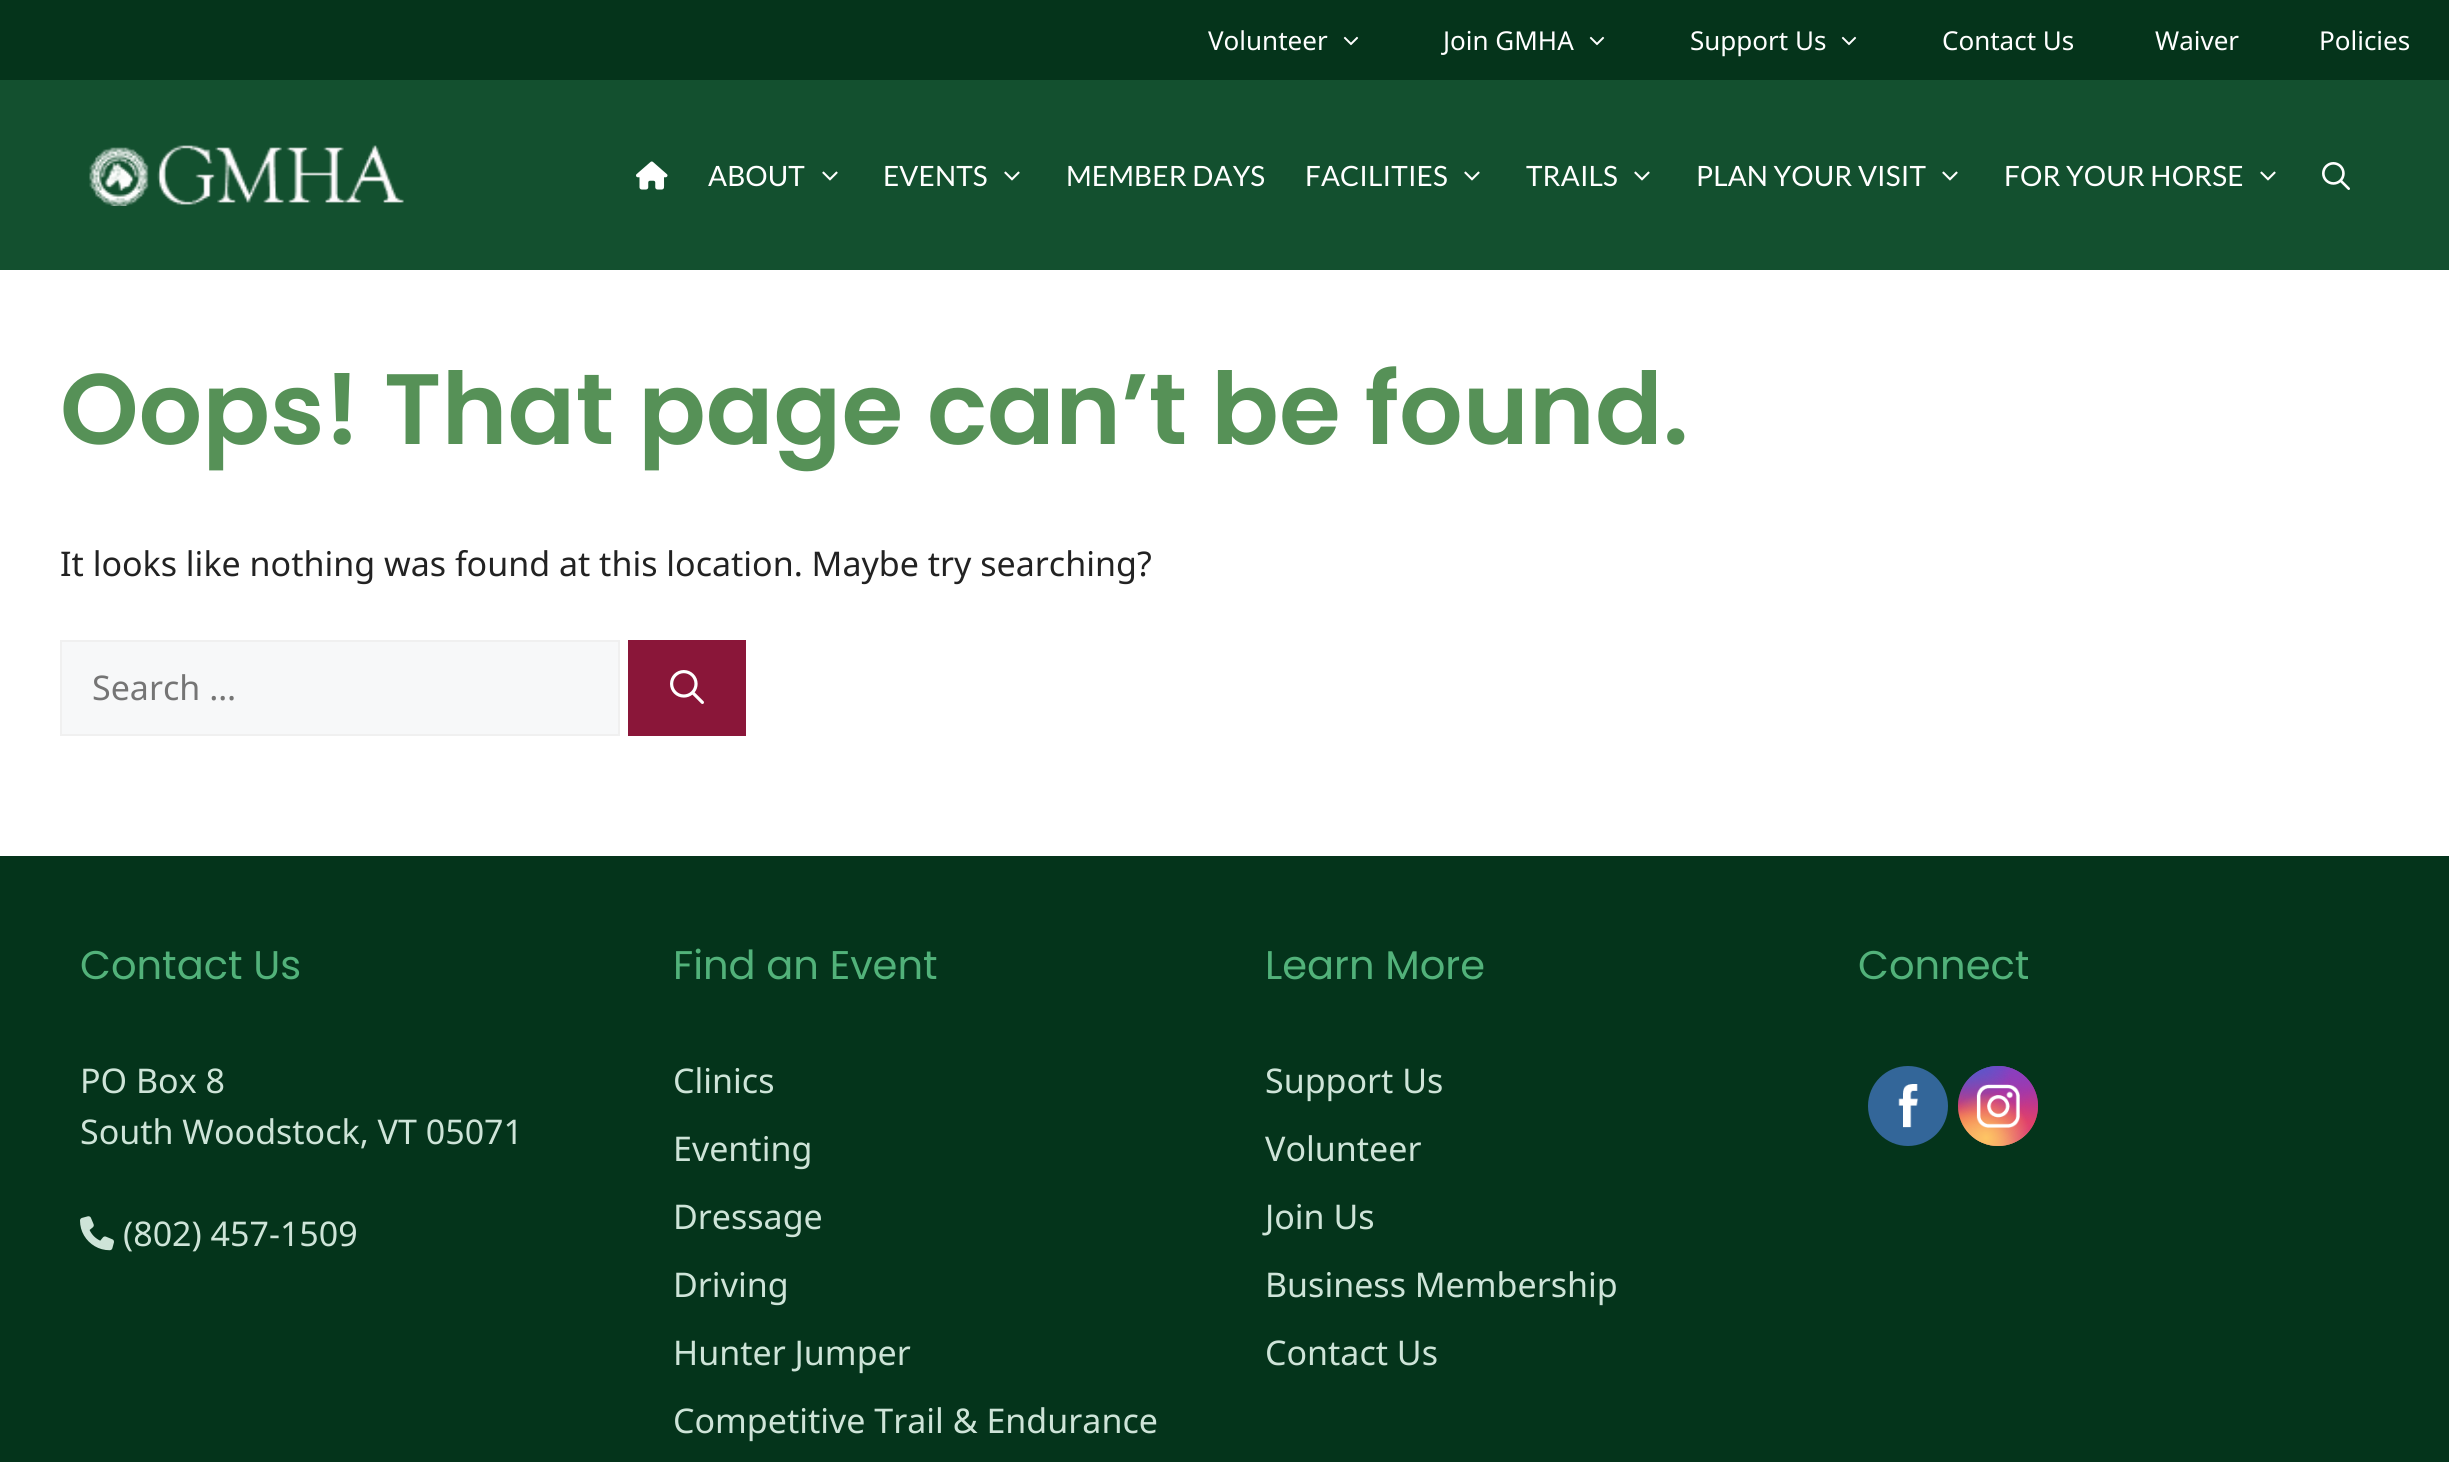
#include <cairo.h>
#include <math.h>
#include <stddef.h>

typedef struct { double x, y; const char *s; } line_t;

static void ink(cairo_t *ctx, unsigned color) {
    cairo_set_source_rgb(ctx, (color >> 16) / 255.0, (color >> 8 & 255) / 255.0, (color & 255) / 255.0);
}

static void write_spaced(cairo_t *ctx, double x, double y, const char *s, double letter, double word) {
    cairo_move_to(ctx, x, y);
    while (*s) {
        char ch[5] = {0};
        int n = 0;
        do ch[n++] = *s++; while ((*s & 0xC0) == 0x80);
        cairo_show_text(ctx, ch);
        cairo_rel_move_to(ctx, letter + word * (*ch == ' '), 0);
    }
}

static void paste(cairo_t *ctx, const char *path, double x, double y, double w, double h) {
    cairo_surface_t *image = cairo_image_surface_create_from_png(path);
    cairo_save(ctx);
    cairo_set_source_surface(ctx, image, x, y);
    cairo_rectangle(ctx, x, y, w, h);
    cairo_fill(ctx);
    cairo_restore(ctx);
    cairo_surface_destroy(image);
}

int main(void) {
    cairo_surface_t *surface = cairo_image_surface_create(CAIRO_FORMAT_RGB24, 2449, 1462);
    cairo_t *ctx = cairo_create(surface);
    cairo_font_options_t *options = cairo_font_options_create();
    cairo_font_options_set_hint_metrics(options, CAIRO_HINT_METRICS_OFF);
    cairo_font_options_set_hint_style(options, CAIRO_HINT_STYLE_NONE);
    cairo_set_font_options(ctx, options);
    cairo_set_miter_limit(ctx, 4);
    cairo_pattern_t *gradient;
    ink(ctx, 0xFFFFFF);
    cairo_paint(ctx);
    ink(ctx, 0x05341B);
    cairo_rectangle(ctx, 0, 0, 2449, 80);
    cairo_fill(ctx);
    cairo_select_font_face(ctx, "Noto Sans", CAIRO_FONT_SLANT_NORMAL, CAIRO_FONT_WEIGHT_NORMAL);
    cairo_set_font_size(ctx, 26);
    ink(ctx, 0xFFFFFF);
    cairo_move_to(ctx, 1208, 50);
    cairo_show_text(ctx, "Volunteer");
    paste(ctx, "media/1.png", 1343, 36, 16, 10);
    cairo_move_to(ctx, 1443, 50);
    cairo_show_text(ctx, "Join GMHA");
    paste(ctx, "media/1.png", 1589, 36, 16, 10);
    cairo_move_to(ctx, 1690, 50);
    cairo_show_text(ctx, "Support Us");
    paste(ctx, "media/1.png", 1841, 36, 16, 10);
    {
        static const line_t items[] = {
            {1942, 50, "Contact Us"},
            {2155, 50, "Waiver"},
            {2319, 50, "Policies"},
        };
        for (size_t i = 0; i < sizeof items / sizeof *items; i++) {
            cairo_move_to(ctx, items[i].x, items[i].y);
            cairo_show_text(ctx, items[i].s);
        }
    }
    ink(ctx, 0x13502F);
    cairo_rectangle(ctx, 0, 80, 2449, 190);
    cairo_fill(ctx);
    paste(ctx, "media/2.png", 89, 145, 315, 61);
    paste(ctx, "media/3.png", 636, 161, 32, 29);
    cairo_select_font_face(ctx, "Lato", CAIRO_FONT_SLANT_NORMAL, CAIRO_FONT_WEIGHT_NORMAL);
    cairo_set_font_size(ctx, 28);
    ink(ctx, 0xFFFFFF);
    write_spaced(ctx, 708, 186, "ABOUT", 0.1, 0);
    paste(ctx, "media/4.png", 822, 171, 16, 10);
    write_spaced(ctx, 883, 186, "EVENTS", 0.1, 0);
    paste(ctx, "media/4.png", 1004, 171, 16, 10);
    write_spaced(ctx, 1066, 186, "MEMBER DAYS", 0.1, 0);
    write_spaced(ctx, 1305, 186, "FACILITIES", 0.1, 0);
    paste(ctx, "media/4.png", 1464, 171, 16, 10);
    write_spaced(ctx, 1526, 186, "TRAILS", 0.1, 0);
    paste(ctx, "media/4.png", 1634, 171, 16, 10);
    write_spaced(ctx, 1696, 186, "PLAN YOUR VISIT", 0.1, 0);
    paste(ctx, "media/4.png", 1942, 171, 16, 10);
    write_spaced(ctx, 2004, 186, "FOR YOUR HORSE", 0.1, 0);
    paste(ctx, "media/4.png", 2260, 171, 16, 10);
    paste(ctx, "media/5.png", 2322, 162, 28, 28);
    cairo_select_font_face(ctx, "Poppins SemiBold", CAIRO_FONT_SLANT_NORMAL, CAIRO_FONT_WEIGHT_NORMAL);
    cairo_set_font_size(ctx, 100);
    ink(ctx, 0x569157);
    cairo_move_to(ctx, 60, 444);
    cairo_show_text(ctx, "Oops! That page can’t be found.");
    cairo_select_font_face(ctx, "Noto Sans", CAIRO_FONT_SLANT_NORMAL, CAIRO_FONT_WEIGHT_NORMAL);
    cairo_set_font_size(ctx, 34);
    ink(ctx, 0x222222);
    cairo_move_to(ctx, 60, 576);
    cairo_show_text(ctx, "It looks like nothing was found at this location. Maybe try searching?");
    ink(ctx, 0xF7F8F9);
    cairo_rectangle(ctx, 61, 641, 558, 94);
    cairo_fill_preserve(ctx);
    ink(ctx, 0xF0F0F0);
    cairo_stroke(ctx);
    ink(ctx, 0x757575);
    cairo_move_to(ctx, 92, 700);
    cairo_show_text(ctx, "Search …");
    ink(ctx, 0x8A1639);
    cairo_rectangle(ctx, 628, 640, 118, 96);
    cairo_fill(ctx);
    paste(ctx, "media/6.png", 670, 670, 34, 34);
    ink(ctx, 0x04341B);
    cairo_rectangle(ctx, 0, 856, 2449, 606);
    cairo_fill(ctx);
    cairo_select_font_face(ctx, "Poppins", CAIRO_FONT_SLANT_NORMAL, CAIRO_FONT_WEIGHT_NORMAL);
    cairo_set_font_size(ctx, 40);
    ink(ctx, 0x52B27A);
    cairo_move_to(ctx, 80, 979);
    cairo_show_text(ctx, "Contact Us");
    cairo_select_font_face(ctx, "Noto Sans", CAIRO_FONT_SLANT_NORMAL, CAIRO_FONT_WEIGHT_NORMAL);
    cairo_set_font_size(ctx, 34);
    ink(ctx, 0xCEE4D8);
    cairo_move_to(ctx, 80, 1093);
    cairo_show_text(ctx, "PO Box 8");
    cairo_move_to(ctx, 80, 1144);
    cairo_show_text(ctx, "South Woodstock, VT 05071");
    paste(ctx, "media/7.png", 80, 1216, 34, 35);
    cairo_move_to(ctx, 123, 1246);
    cairo_show_text(ctx, "(802) 457-1509");
    cairo_select_font_face(ctx, "Poppins", CAIRO_FONT_SLANT_NORMAL, CAIRO_FONT_WEIGHT_NORMAL);
    cairo_set_font_size(ctx, 40);
    ink(ctx, 0x52B27A);
    cairo_move_to(ctx, 673, 979);
    cairo_show_text(ctx, "Find an Event");
    cairo_select_font_face(ctx, "Noto Sans", CAIRO_FONT_SLANT_NORMAL, CAIRO_FONT_WEIGHT_NORMAL);
    cairo_set_font_size(ctx, 34);
    ink(ctx, 0xCEE4D8);
    {
        static const line_t items[] = {
            {673, 1093, "Clinics"},
            {673, 1161, "Eventing"},
            {673, 1229, "Dressage"},
            {673, 1297, "Driving"},
            {673, 1365, "Hunter Jumper"},
            {673, 1433, "Competitive Trail & Endurance"},
        };
        for (size_t i = 0; i < sizeof items / sizeof *items; i++) {
            cairo_move_to(ctx, items[i].x, items[i].y);
            cairo_show_text(ctx, items[i].s);
        }
    }
    cairo_select_font_face(ctx, "Poppins", CAIRO_FONT_SLANT_NORMAL, CAIRO_FONT_WEIGHT_NORMAL);
    cairo_set_font_size(ctx, 40);
    ink(ctx, 0x52B27A);
    cairo_move_to(ctx, 1265, 979);
    cairo_show_text(ctx, "Learn More");
    cairo_select_font_face(ctx, "Noto Sans", CAIRO_FONT_SLANT_NORMAL, CAIRO_FONT_WEIGHT_NORMAL);
    cairo_set_font_size(ctx, 34);
    ink(ctx, 0xCEE4D8);
    {
        static const line_t items[] = {
            {1265, 1093, "Support Us"},
            {1265, 1161, "Volunteer"},
            {1265, 1229, "Join Us"},
            {1265, 1297, "Business Membership"},
            {1265, 1365, "Contact Us"},
        };
        for (size_t i = 0; i < sizeof items / sizeof *items; i++) {
            cairo_move_to(ctx, items[i].x, items[i].y);
            cairo_show_text(ctx, items[i].s);
        }
    }
    cairo_select_font_face(ctx, "Poppins", CAIRO_FONT_SLANT_NORMAL, CAIRO_FONT_WEIGHT_NORMAL);
    cairo_set_font_size(ctx, 40);
    ink(ctx, 0x52B27A);
    cairo_move_to(ctx, 1858, 979);
    cairo_show_text(ctx, "Connect");
    ink(ctx, 0x336699);
    cairo_new_path(ctx);
    cairo_arc(ctx, 1908, 1106, 40, 0, 2 * M_PI);
    cairo_fill(ctx);
    paste(ctx, "media/8.png", 1898, 1084, 21, 44);
    gradient = cairo_pattern_create_linear(1998, 1066, 1998, 1146);
    cairo_pattern_add_color_stop_rgba(gradient, 0, 0.396, 0.349, 0.792, 1);
    cairo_pattern_add_color_stop_rgba(gradient, 0.3, 0.737, 0.192, 0.561, 1);
    cairo_pattern_add_color_stop_rgba(gradient, 0.5, 0.89, 0.247, 0.373, 1);
    cairo_pattern_add_color_stop_rgba(gradient, 0.7, 0.969, 0.463, 0.22, 1);
    cairo_pattern_add_color_stop_rgba(gradient, 1, 0.996, 0.776, 0.427, 1);
    cairo_set_source(ctx, gradient);
    cairo_pattern_destroy(gradient);
    cairo_arc(ctx, 1998, 1106, 40, 0, 2 * M_PI);
    cairo_fill(ctx);
    gradient = cairo_pattern_create_radial(2038, 1146, 0, 2038, 1146, 113);
    cairo_pattern_add_color_stop_rgba(gradient, 0, 0.851, 0.192, 0.478, 1);
    cairo_pattern_add_color_stop_rgba(gradient, 1, 0.851, 0.192, 0.478, 0);
    cairo_set_source(ctx, gradient);
    cairo_pattern_destroy(gradient);
    cairo_arc(ctx, 1998, 1106, 40, 0, 2 * M_PI);
    cairo_fill(ctx);
    gradient = cairo_pattern_create_radial(0, 0, 0, 0, 0, 1);
    cairo_pattern_set_matrix(gradient, &(cairo_matrix_t){1.0 / 68, 0, 0, 1.0 / 136, -1.0 * 2006 / 68, -1.0 * 1050 / 136});
    cairo_pattern_add_color_stop_rgba(gradient, 0, 0.537, 0.239, 0.761, 1);
    cairo_pattern_add_color_stop_rgba(gradient, 0.5, 0.537, 0.239, 0.761, 0);
    cairo_set_source(ctx, gradient);
    cairo_pattern_destroy(gradient);
    cairo_arc(ctx, 1998, 1106, 40, 0, 2 * M_PI);
    cairo_fill(ctx);
    gradient = cairo_pattern_create_radial(2038, 1066, 0, 2038, 1066, 113);
    cairo_pattern_add_color_stop_rgba(gradient, 0, 0.537, 0.239, 0.761, 1);
    cairo_pattern_add_color_stop_rgba(gradient, 0.5, 0.537, 0.239, 0.761, 0);
    cairo_set_source(ctx, gradient);
    cairo_pattern_destroy(gradient);
    cairo_arc(ctx, 1998, 1106, 40, 0, 2 * M_PI);
    cairo_fill(ctx);
    gradient = cairo_pattern_create_radial(0, 0, 0, 0, 0, 1);
    cairo_pattern_set_matrix(gradient, &(cairo_matrix_t){1.0 / 91, 0, 0, 1.0 / 170, -1.0 * 1974 / 91, -1.0 * 1026 / 170});
    cairo_pattern_add_color_stop_rgba(gradient, 0, 0.322, 0.345, 0.812, 1);
    cairo_pattern_add_color_stop_rgba(gradient, 0.5, 0.322, 0.345, 0.812, 0);
    cairo_set_source(ctx, gradient);
    cairo_pattern_destroy(gradient);
    cairo_arc(ctx, 1998, 1106, 40, 0, 2 * M_PI);
    cairo_fill(ctx);
    gradient = cairo_pattern_create_radial(0, 0, 0, 0, 0, 1);
    cairo_pattern_set_matrix(gradient, &(cairo_matrix_t){1.0 / 113, 0, 0, 1.0 / 141, -1.0 * 1958 / 113, -1.0 * 1046 / 141});
    cairo_pattern_add_color_stop_rgba(gradient, 0, 0.322, 0.345, 0.812, 1);
    cairo_pattern_add_color_stop_rgba(gradient, 0.5, 0.322, 0.345, 0.812, 0);
    cairo_set_source(ctx, gradient);
    cairo_pattern_destroy(gradient);
    cairo_arc(ctx, 1998, 1106, 40, 0, 2 * M_PI);
    cairo_fill(ctx);
    gradient = cairo_pattern_create_radial(1958, 1178, 0, 1958, 1178, 138);
    cairo_pattern_add_color_stop_rgba(gradient, 0, 0.996, 0.773, 0.392, 1);
    cairo_pattern_add_color_stop_rgba(gradient, 0.5, 0.996, 0.773, 0.392, 0);
    cairo_set_source(ctx, gradient);
    cairo_pattern_destroy(gradient);
    cairo_arc(ctx, 1998, 1106, 40, 0, 2 * M_PI);
    cairo_fill(ctx);
    gradient = cairo_pattern_create_radial(1986, 1138, 0, 1986, 1138, 89);
    cairo_pattern_add_color_stop_rgba(gradient, 0, 0.996, 0.773, 0.392, 1);
    cairo_pattern_add_color_stop_rgba(gradient, 0.5, 0.996, 0.773, 0.392, 0);
    cairo_set_source(ctx, gradient);
    cairo_pattern_destroy(gradient);
    cairo_arc(ctx, 1998, 1106, 40, 0, 2 * M_PI);
    cairo_fill(ctx);
    paste(ctx, "media/9.png", 1976, 1084, 44, 44);
    cairo_surface_write_to_png(surface, "image.png");
    cairo_font_options_destroy(options);
    cairo_destroy(ctx);
    cairo_surface_destroy(surface);
    return 0;
}
